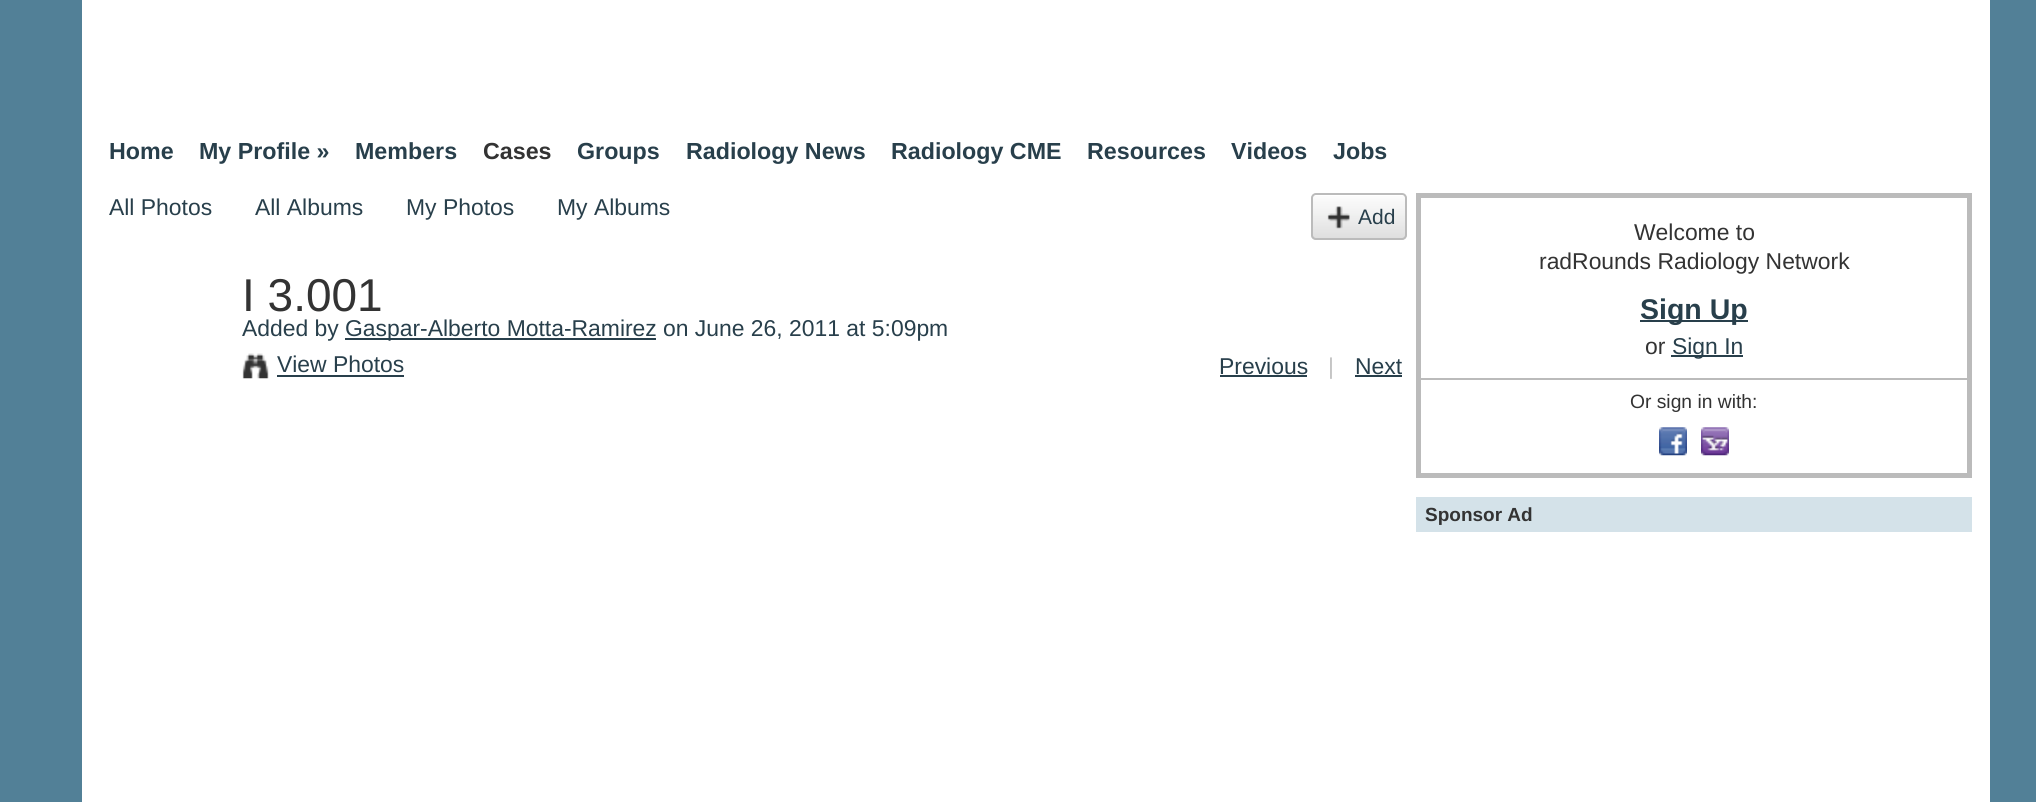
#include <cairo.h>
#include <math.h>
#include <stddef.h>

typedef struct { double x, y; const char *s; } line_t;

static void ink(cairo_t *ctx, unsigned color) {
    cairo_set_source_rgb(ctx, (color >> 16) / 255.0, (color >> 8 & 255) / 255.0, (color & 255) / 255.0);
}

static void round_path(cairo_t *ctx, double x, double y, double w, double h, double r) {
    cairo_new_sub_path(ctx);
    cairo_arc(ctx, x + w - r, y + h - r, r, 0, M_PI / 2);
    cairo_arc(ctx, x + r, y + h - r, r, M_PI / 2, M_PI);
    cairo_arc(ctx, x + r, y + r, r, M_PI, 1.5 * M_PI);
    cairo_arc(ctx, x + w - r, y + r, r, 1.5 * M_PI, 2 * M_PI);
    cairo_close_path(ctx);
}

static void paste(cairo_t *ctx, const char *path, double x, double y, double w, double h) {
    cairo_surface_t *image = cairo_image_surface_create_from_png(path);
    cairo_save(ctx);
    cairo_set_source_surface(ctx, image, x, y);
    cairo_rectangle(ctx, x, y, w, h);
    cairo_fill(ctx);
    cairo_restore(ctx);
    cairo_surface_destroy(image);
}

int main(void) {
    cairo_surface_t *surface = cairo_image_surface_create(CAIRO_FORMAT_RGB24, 2036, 802);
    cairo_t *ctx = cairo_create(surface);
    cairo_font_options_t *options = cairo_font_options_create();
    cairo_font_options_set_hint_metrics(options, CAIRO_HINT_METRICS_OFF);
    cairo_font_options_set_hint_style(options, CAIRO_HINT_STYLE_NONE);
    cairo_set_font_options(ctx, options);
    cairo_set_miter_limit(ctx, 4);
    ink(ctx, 0x528097);
    cairo_paint(ctx);
    ink(ctx, 0xFFFFFF);
    cairo_rectangle(ctx, 82, 0, 1908, 802);
    cairo_fill(ctx);
    cairo_select_font_face(ctx, "Liberation Sans", CAIRO_FONT_SLANT_NORMAL, CAIRO_FONT_WEIGHT_BOLD);
    cairo_set_font_size(ctx, 23.25);
    ink(ctx, 0x283F4B);
    {
        static const line_t items[] = {
            {109, 159, "Home"},
            {199, 159, "My Profile »"},
            {355, 159, "Members"},
        };
        for (size_t i = 0; i < sizeof items / sizeof *items; i++) {
            cairo_move_to(ctx, items[i].x, items[i].y);
            cairo_show_text(ctx, items[i].s);
        }
    }
    ink(ctx, 0x333333);
    cairo_move_to(ctx, 483, 159);
    cairo_show_text(ctx, "Cases");
    ink(ctx, 0x283F4B);
    {
        static const line_t items[] = {
            {577, 159, "Groups"},
            {686, 159, "Radiology News"},
            {891, 159, "Radiology CME"},
            {1087, 159, "Resources"},
            {1231, 159, "Videos"},
            {1333, 159, "Jobs"},
        };
        for (size_t i = 0; i < sizeof items / sizeof *items; i++) {
            cairo_move_to(ctx, items[i].x, items[i].y);
            cairo_show_text(ctx, items[i].s);
        }
    }
    cairo_select_font_face(ctx, "Liberation Sans", CAIRO_FONT_SLANT_NORMAL, CAIRO_FONT_WEIGHT_NORMAL);
    cairo_set_font_size(ctx, 22.9);
    {
        static const line_t items[] = {
            {109, 215, "All Photos"},
            {255, 215, "All Albums"},
            {406, 215, "My Photos"},
            {557, 215, "My Albums"},
        };
        for (size_t i = 0; i < sizeof items / sizeof *items; i++) {
            cairo_move_to(ctx, items[i].x, items[i].y);
            cairo_show_text(ctx, items[i].s);
        }
    }
    paste(ctx, "media/1.png", 1311, 196, 96, 44);
    round_path(ctx, 1312, 194, 94, 45, 4);
    ink(ctx, 0xBBBBBB);
    cairo_stroke(ctx);
    paste(ctx, "media/2.png", 1327, 206, 23, 23);
    cairo_set_font_size(ctx, 21);
    ink(ctx, 0x283F4B);
    cairo_move_to(ctx, 1358, 224);
    cairo_show_text(ctx, "Add");
    cairo_set_font_size(ctx, 46);
    ink(ctx, 0x333333);
    cairo_move_to(ctx, 242, 311);
    cairo_show_text(ctx, "I 3.001");
    cairo_set_font_size(ctx, 22.9);
    ink(ctx, 0x283F4B);
    cairo_move_to(ctx, 242, 336);
    cairo_show_text(ctx, "Added by");
    cairo_rectangle(ctx, 345, 338, 311, 2);
    cairo_fill(ctx);
    cairo_move_to(ctx, 345, 336);
    cairo_show_text(ctx, "Gaspar-Alberto Motta-Ramirez");
    cairo_move_to(ctx, 663, 336);
    cairo_show_text(ctx, "on June 26, 2011 at 5:09pm");
    paste(ctx, "media/3.png", 242, 353, 27, 26);
    cairo_move_to(ctx, 277, 372);
    cairo_show_text(ctx, "View Photos");
    cairo_rectangle(ctx, 277, 375, 127, 2);
    cairo_fill(ctx);
    cairo_move_to(ctx, 1219, 374);
    cairo_show_text(ctx, "Previous");
    cairo_rectangle(ctx, 1220, 375, 87, 2);
    cairo_fill(ctx);
    ink(ctx, 0xC2C2C2);
    cairo_move_to(ctx, 1328, 374);
    cairo_show_text(ctx, "|");
    ink(ctx, 0x283F4B);
    cairo_move_to(ctx, 1355, 374);
    cairo_show_text(ctx, "Next");
    cairo_rectangle(ctx, 1355, 375, 47, 2);
    cairo_fill(ctx);
    cairo_rectangle(ctx, 1418.5, 195.5, 551, 280);
    ink(ctx, 0xBBBBBB);
    cairo_set_line_width(ctx, 5);
    cairo_stroke(ctx);
    ink(ctx, 0x333333);
    cairo_move_to(ctx, 1634, 240);
    cairo_show_text(ctx, "Welcome to");
    cairo_move_to(ctx, 1539, 269);
    cairo_show_text(ctx, "radRounds Radiology Network");
    ink(ctx, 0x283F4B);
    cairo_rectangle(ctx, 1640, 320, 108, 2);
    cairo_fill(ctx);
    cairo_select_font_face(ctx, "Liberation Sans", CAIRO_FONT_SLANT_NORMAL, CAIRO_FONT_WEIGHT_BOLD);
    cairo_set_font_size(ctx, 28.5);
    cairo_move_to(ctx, 1640, 319);
    cairo_show_text(ctx, "Sign Up");
    cairo_select_font_face(ctx, "Liberation Sans", CAIRO_FONT_SLANT_NORMAL, CAIRO_FONT_WEIGHT_NORMAL);
    cairo_set_font_size(ctx, 22.9);
    ink(ctx, 0x333333);
    cairo_move_to(ctx, 1645, 354);
    cairo_show_text(ctx, "or");
    ink(ctx, 0x283F4B);
    cairo_rectangle(ctx, 1671, 355, 72, 2);
    cairo_fill(ctx);
    cairo_move_to(ctx, 1672, 354);
    cairo_show_text(ctx, "Sign In");
    ink(ctx, 0xBBBBBB);
    cairo_rectangle(ctx, 1421, 378, 546, 2);
    cairo_fill(ctx);
    cairo_set_font_size(ctx, 19.25);
    ink(ctx, 0x333333);
    cairo_move_to(ctx, 1630, 408);
    cairo_show_text(ctx, "Or sign in with:");
    paste(ctx, "media/4.png", 1659, 427, 28, 29);
    paste(ctx, "media/5.png", 1701, 427, 28, 29);
    ink(ctx, 0xD4E2E9);
    cairo_rectangle(ctx, 1416, 497, 556, 35);
    cairo_fill(ctx);
    cairo_select_font_face(ctx, "Liberation Sans", CAIRO_FONT_SLANT_NORMAL, CAIRO_FONT_WEIGHT_BOLD);
    cairo_set_font_size(ctx, 19);
    ink(ctx, 0x333333);
    cairo_move_to(ctx, 1425, 521);
    cairo_show_text(ctx, "Sponsor Ad");
    cairo_surface_write_to_png(surface, "image.png");
    cairo_font_options_destroy(options);
    cairo_destroy(ctx);
    cairo_surface_destroy(surface);
    return 0;
}
